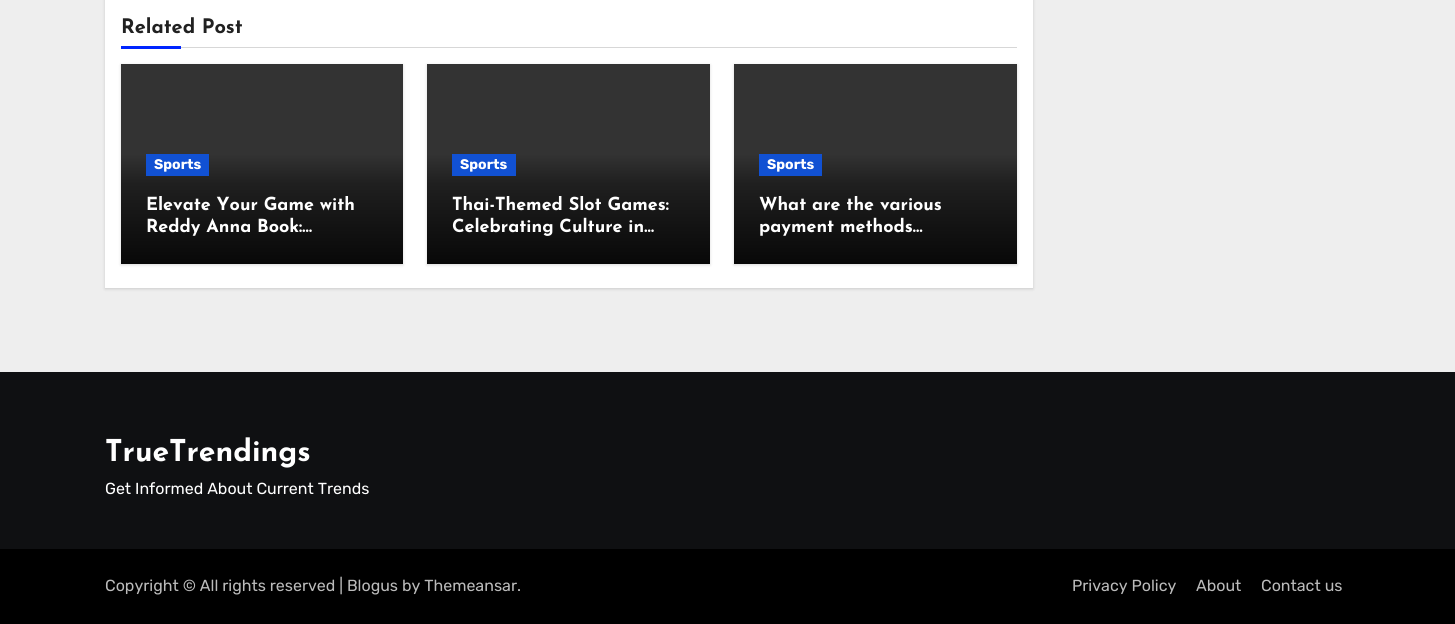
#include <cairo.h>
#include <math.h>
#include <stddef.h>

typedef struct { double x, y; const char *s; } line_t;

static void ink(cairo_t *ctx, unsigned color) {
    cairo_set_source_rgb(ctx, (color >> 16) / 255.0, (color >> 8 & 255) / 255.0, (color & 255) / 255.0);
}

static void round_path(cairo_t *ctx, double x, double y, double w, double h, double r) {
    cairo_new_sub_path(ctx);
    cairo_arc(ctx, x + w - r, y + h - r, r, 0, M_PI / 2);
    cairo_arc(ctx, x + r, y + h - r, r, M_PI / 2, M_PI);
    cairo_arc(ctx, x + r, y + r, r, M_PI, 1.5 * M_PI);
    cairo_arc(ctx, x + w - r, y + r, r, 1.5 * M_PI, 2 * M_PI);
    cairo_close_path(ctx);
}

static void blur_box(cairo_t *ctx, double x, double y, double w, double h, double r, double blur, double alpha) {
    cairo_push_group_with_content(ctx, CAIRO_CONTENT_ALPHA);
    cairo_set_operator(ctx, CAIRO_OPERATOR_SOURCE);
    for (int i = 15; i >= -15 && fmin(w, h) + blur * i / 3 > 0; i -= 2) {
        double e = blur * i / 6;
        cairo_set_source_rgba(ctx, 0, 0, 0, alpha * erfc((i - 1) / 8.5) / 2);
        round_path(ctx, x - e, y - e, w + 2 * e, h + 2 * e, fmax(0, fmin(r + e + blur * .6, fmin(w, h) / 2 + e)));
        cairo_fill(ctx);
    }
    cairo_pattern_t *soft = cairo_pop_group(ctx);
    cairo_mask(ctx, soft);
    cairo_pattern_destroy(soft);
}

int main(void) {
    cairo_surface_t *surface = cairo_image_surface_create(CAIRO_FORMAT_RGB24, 1455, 624);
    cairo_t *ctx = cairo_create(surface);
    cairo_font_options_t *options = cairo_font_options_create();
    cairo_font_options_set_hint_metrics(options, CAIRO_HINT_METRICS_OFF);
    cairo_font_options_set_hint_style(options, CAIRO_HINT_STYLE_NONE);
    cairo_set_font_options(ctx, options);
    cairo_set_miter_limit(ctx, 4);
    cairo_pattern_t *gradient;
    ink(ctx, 0xEEEEEE);
    cairo_paint(ctx);
    ink(ctx, 0x000000);
    blur_box(ctx, 105, -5, 928, 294, 0, 1.5, 0.15);
    ink(ctx, 0xFFFFFF);
    cairo_rectangle(ctx, 105, 0, 928, 288);
    cairo_fill(ctx);
    ink(ctx, 0xD7D7D7);
    cairo_rectangle(ctx, 181, 47, 836, 1);
    cairo_fill(ctx);
    cairo_select_font_face(ctx, "Josefin Sans Thin", CAIRO_FONT_SLANT_NORMAL, CAIRO_FONT_WEIGHT_NORMAL);
    cairo_set_font_size(ctx, 20);
    ink(ctx, 0x212121);
    cairo_move_to(ctx, 121, 33);
    cairo_show_text(ctx, "Related Post");
    ink(ctx, 0x0025FF);
    cairo_rectangle(ctx, 121, 46, 60, 3);
    cairo_fill(ctx);
    ink(ctx, 0x000000);
    blur_box(ctx, 121, 65, 282, 200, 0, 1.5, 0.15);
    gradient = cairo_pattern_create_linear(262, 64, 262, 264);
    cairo_pattern_add_color_stop_rgba(gradient, 0, 0.2, 0.2, 0.2, 1);
    cairo_pattern_add_color_stop_rgba(gradient, 0.45, 0.2, 0.2, 0.2, 1);
    cairo_pattern_add_color_stop_rgba(gradient, 0.6, 0.122, 0.122, 0.122, 1);
    cairo_pattern_add_color_stop_rgba(gradient, 1, 0.031, 0.031, 0.031, 1);
    cairo_set_source(ctx, gradient);
    cairo_pattern_destroy(gradient);
    cairo_rectangle(ctx, 121, 64, 282, 200);
    cairo_fill(ctx);
    ink(ctx, 0x1151D3);
    cairo_rectangle(ctx, 146, 154, 63, 22);
    cairo_fill(ctx);
    cairo_select_font_face(ctx, "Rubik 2 Light", CAIRO_FONT_SLANT_NORMAL, CAIRO_FONT_WEIGHT_NORMAL);
    cairo_set_font_size(ctx, 14);
    ink(ctx, 0xFFFFFF);
    cairo_move_to(ctx, 154, 169);
    cairo_show_text(ctx, "Sports");
    cairo_save(ctx);
    cairo_rectangle(ctx, 146, 196, 232, 43);
    cairo_clip(ctx);
    cairo_select_font_face(ctx, "Josefin Sans Thin", CAIRO_FONT_SLANT_NORMAL, CAIRO_FONT_WEIGHT_NORMAL);
    cairo_set_font_size(ctx, 18);
    cairo_move_to(ctx, 146, 210);
    cairo_show_text(ctx, "Elevate Your Game with");
    cairo_restore(ctx);
    cairo_select_font_face(ctx, "Josefin Sans Thin", CAIRO_FONT_SLANT_NORMAL, CAIRO_FONT_WEIGHT_NORMAL);
    cairo_set_font_size(ctx, 18);
    cairo_move_to(ctx, 146, 232);
    cairo_show_text(ctx, "Reddy Anna Book:…");
    ink(ctx, 0x000000);
    blur_box(ctx, 427, 65, 283, 200, 0, 1.5, 0.15);
    gradient = cairo_pattern_create_linear(569, 64, 569, 264);
    cairo_pattern_add_color_stop_rgba(gradient, 0, 0.2, 0.2, 0.2, 1);
    cairo_pattern_add_color_stop_rgba(gradient, 0.45, 0.2, 0.2, 0.2, 1);
    cairo_pattern_add_color_stop_rgba(gradient, 0.6, 0.122, 0.122, 0.122, 1);
    cairo_pattern_add_color_stop_rgba(gradient, 1, 0.031, 0.031, 0.031, 1);
    cairo_set_source(ctx, gradient);
    cairo_pattern_destroy(gradient);
    cairo_rectangle(ctx, 427, 64, 283, 200);
    cairo_fill(ctx);
    ink(ctx, 0x1151D3);
    cairo_rectangle(ctx, 452, 154, 64, 22);
    cairo_fill(ctx);
    cairo_select_font_face(ctx, "Rubik 2 Light", CAIRO_FONT_SLANT_NORMAL, CAIRO_FONT_WEIGHT_NORMAL);
    cairo_set_font_size(ctx, 14);
    ink(ctx, 0xFFFFFF);
    cairo_move_to(ctx, 460, 169);
    cairo_show_text(ctx, "Sports");
    cairo_save(ctx);
    cairo_rectangle(ctx, 452, 196, 233, 43);
    cairo_clip(ctx);
    cairo_select_font_face(ctx, "Josefin Sans Thin", CAIRO_FONT_SLANT_NORMAL, CAIRO_FONT_WEIGHT_NORMAL);
    cairo_set_font_size(ctx, 18);
    cairo_move_to(ctx, 452, 210);
    cairo_show_text(ctx, "Thai-Themed Slot Games:");
    cairo_restore(ctx);
    cairo_select_font_face(ctx, "Josefin Sans Thin", CAIRO_FONT_SLANT_NORMAL, CAIRO_FONT_WEIGHT_NORMAL);
    cairo_set_font_size(ctx, 18);
    cairo_move_to(ctx, 452, 232);
    cairo_show_text(ctx, "Celebrating Culture in…");
    ink(ctx, 0x000000);
    blur_box(ctx, 734, 65, 283, 200, 0, 1.5, 0.15);
    gradient = cairo_pattern_create_linear(876, 64, 876, 264);
    cairo_pattern_add_color_stop_rgba(gradient, 0, 0.2, 0.2, 0.2, 1);
    cairo_pattern_add_color_stop_rgba(gradient, 0.45, 0.2, 0.2, 0.2, 1);
    cairo_pattern_add_color_stop_rgba(gradient, 0.6, 0.122, 0.122, 0.122, 1);
    cairo_pattern_add_color_stop_rgba(gradient, 1, 0.031, 0.031, 0.031, 1);
    cairo_set_source(ctx, gradient);
    cairo_pattern_destroy(gradient);
    cairo_rectangle(ctx, 734, 64, 283, 200);
    cairo_fill(ctx);
    ink(ctx, 0x1151D3);
    cairo_rectangle(ctx, 759, 154, 63, 22);
    cairo_fill(ctx);
    cairo_select_font_face(ctx, "Rubik 2 Light", CAIRO_FONT_SLANT_NORMAL, CAIRO_FONT_WEIGHT_NORMAL);
    cairo_set_font_size(ctx, 14);
    ink(ctx, 0xFFFFFF);
    cairo_move_to(ctx, 767, 169);
    cairo_show_text(ctx, "Sports");
    cairo_save(ctx);
    cairo_rectangle(ctx, 759, 196, 233, 43);
    cairo_clip(ctx);
    cairo_select_font_face(ctx, "Josefin Sans Thin", CAIRO_FONT_SLANT_NORMAL, CAIRO_FONT_WEIGHT_NORMAL);
    cairo_set_font_size(ctx, 18);
    cairo_move_to(ctx, 759, 210);
    cairo_show_text(ctx, "What are the various");
    cairo_restore(ctx);
    cairo_select_font_face(ctx, "Josefin Sans Thin", CAIRO_FONT_SLANT_NORMAL, CAIRO_FONT_WEIGHT_NORMAL);
    cairo_set_font_size(ctx, 18);
    cairo_move_to(ctx, 759, 232);
    cairo_show_text(ctx, "payment methods…");
    ink(ctx, 0x0F1012);
    cairo_rectangle(ctx, 0, 372, 1455, 177);
    cairo_fill(ctx);
    cairo_set_font_size(ctx, 30);
    ink(ctx, 0xFFFFFF);
    cairo_move_to(ctx, 105, 461);
    cairo_show_text(ctx, "TrueTrendings");
    cairo_select_font_face(ctx, "Rubik Light", CAIRO_FONT_SLANT_NORMAL, CAIRO_FONT_WEIGHT_NORMAL);
    cairo_set_font_size(ctx, 16);
    cairo_move_to(ctx, 105, 494);
    cairo_show_text(ctx, "Get Informed About Current Trends");
    ink(ctx, 0x000000);
    cairo_rectangle(ctx, 0, 549, 1455, 75);
    cairo_fill(ctx);
    ink(ctx, 0xBBBBBB);
    {
        static const line_t items[] = {
            {105, 591, "Copyright © All rights reserved | Blogus by Themeansar."},
            {1072, 591, "Privacy Policy"},
            {1196, 591, "About"},
            {1261, 591, "Contact us"},
        };
        for (size_t i = 0; i < sizeof items / sizeof *items; i++) {
            cairo_move_to(ctx, items[i].x, items[i].y);
            cairo_show_text(ctx, items[i].s);
        }
    }
    cairo_surface_write_to_png(surface, "image.png");
    cairo_font_options_destroy(options);
    cairo_destroy(ctx);
    cairo_surface_destroy(surface);
    return 0;
}
